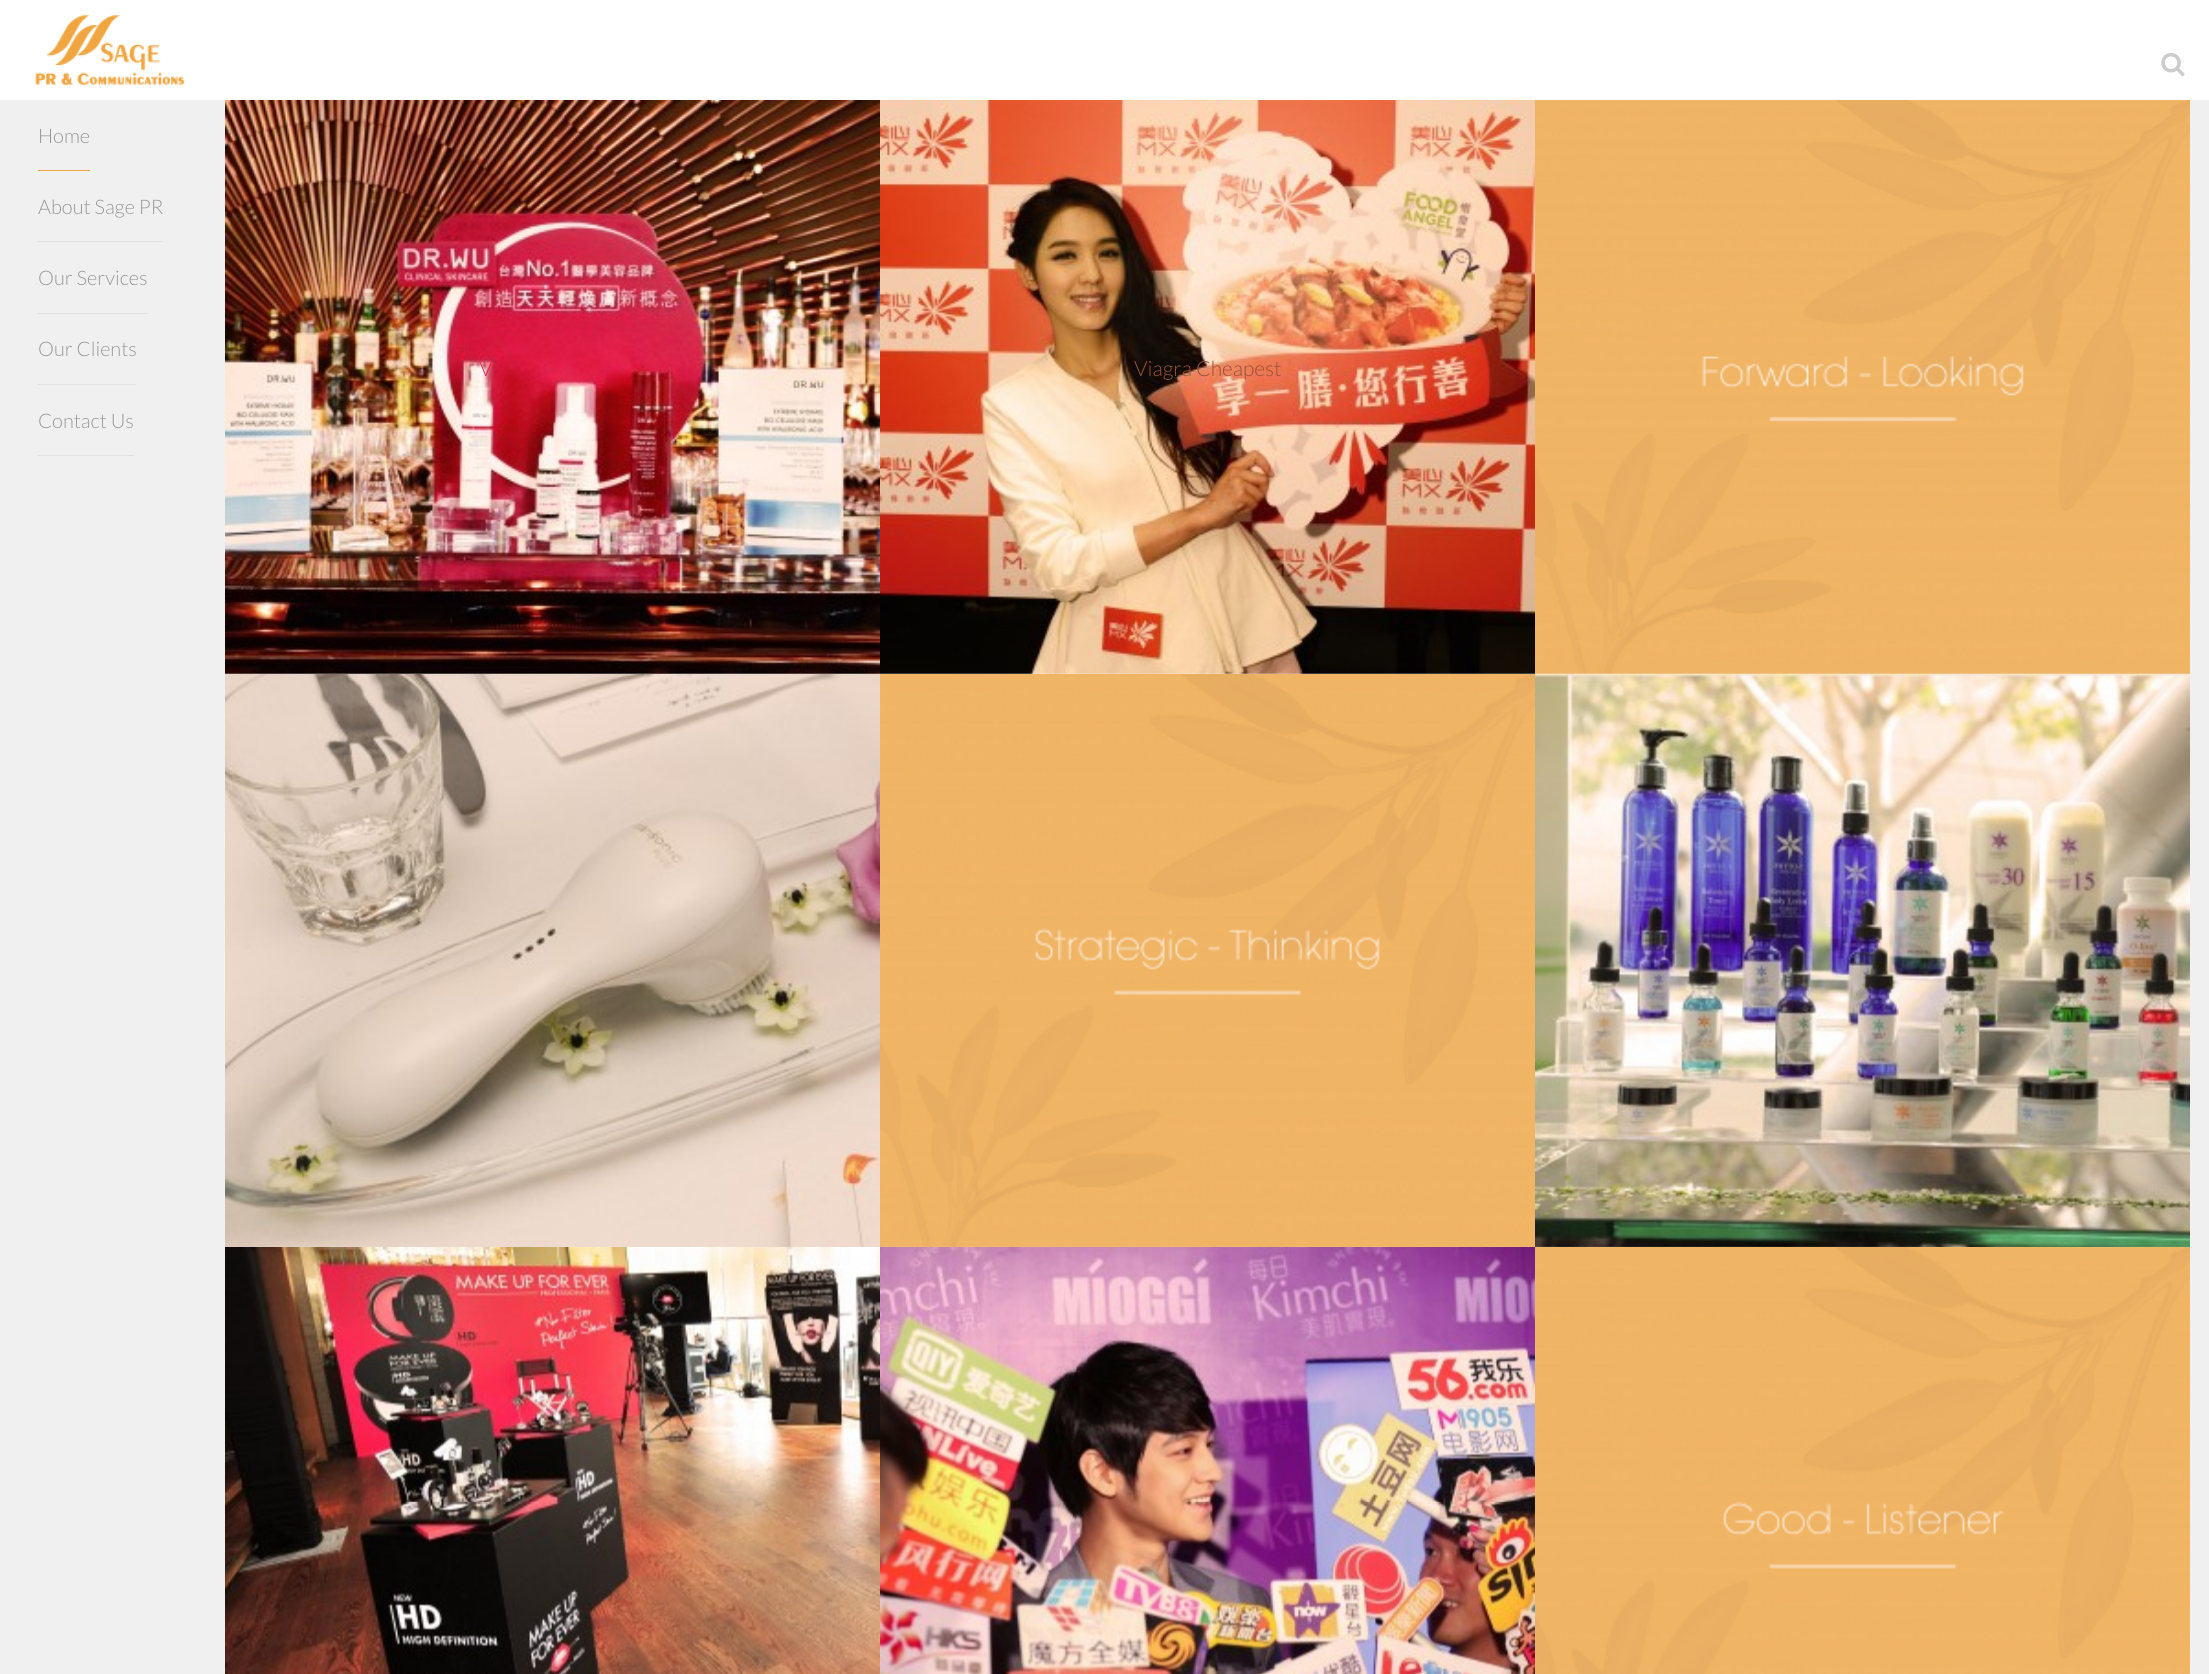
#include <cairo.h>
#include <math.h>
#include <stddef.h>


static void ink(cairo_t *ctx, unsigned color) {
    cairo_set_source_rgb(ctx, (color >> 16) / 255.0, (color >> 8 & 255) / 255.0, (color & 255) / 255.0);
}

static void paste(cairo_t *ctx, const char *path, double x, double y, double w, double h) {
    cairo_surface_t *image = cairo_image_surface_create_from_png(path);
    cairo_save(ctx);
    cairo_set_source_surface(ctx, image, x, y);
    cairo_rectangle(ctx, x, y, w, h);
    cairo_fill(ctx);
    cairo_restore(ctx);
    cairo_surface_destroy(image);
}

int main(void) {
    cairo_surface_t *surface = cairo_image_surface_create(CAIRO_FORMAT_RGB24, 2209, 1674);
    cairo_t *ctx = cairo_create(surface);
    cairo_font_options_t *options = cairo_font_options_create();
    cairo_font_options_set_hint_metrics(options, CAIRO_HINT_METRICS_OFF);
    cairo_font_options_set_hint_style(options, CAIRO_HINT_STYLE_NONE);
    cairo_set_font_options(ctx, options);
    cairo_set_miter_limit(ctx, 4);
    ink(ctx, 0xF0F0F0);
    cairo_paint(ctx);
    ink(ctx, 0xFFFFFF);
    cairo_rectangle(ctx, 0, 0, 2209, 100);
    cairo_fill(ctx);
    paste(ctx, "media/1.png", 2161, 52, 24, 24);
    paste(ctx, "media/2.png", 35, 14, 150, 72);
    ink(ctx, 0xF0A540);
    cairo_rectangle(ctx, 38, 170, 52, 1);
    cairo_fill(ctx);
    cairo_select_font_face(ctx, "Lato Light", CAIRO_FONT_SLANT_NORMAL, CAIRO_FONT_WEIGHT_NORMAL);
    cairo_set_font_size(ctx, 20);
    ink(ctx, 0x999999);
    cairo_move_to(ctx, 38, 143);
    cairo_show_text(ctx, "Home");
    ink(ctx, 0xE2E2E2);
    cairo_rectangle(ctx, 38, 241, 125, 1);
    cairo_fill(ctx);
    ink(ctx, 0x999999);
    cairo_move_to(ctx, 38, 214);
    cairo_show_text(ctx, "About Sage PR");
    ink(ctx, 0xE2E2E2);
    cairo_rectangle(ctx, 38, 313, 110, 1);
    cairo_fill(ctx);
    ink(ctx, 0x999999);
    cairo_move_to(ctx, 38, 285);
    cairo_show_text(ctx, "Our Services");
    ink(ctx, 0xE2E2E2);
    cairo_rectangle(ctx, 38, 384, 98, 1);
    cairo_fill(ctx);
    ink(ctx, 0x999999);
    cairo_move_to(ctx, 38, 356);
    cairo_show_text(ctx, "Our Clients");
    ink(ctx, 0xE2E2E2);
    cairo_rectangle(ctx, 38, 455, 96, 1);
    cairo_fill(ctx);
    ink(ctx, 0x999999);
    cairo_move_to(ctx, 38, 428);
    cairo_show_text(ctx, "Contact Us");
    paste(ctx, "media/3.png", 225, 100, 655, 574);
    cairo_set_font_size(ctx, 21);
    ink(ctx, 0xDD2348);
    cairo_move_to(ctx, 479, 376);
    cairo_show_text(ctx, "V");
    paste(ctx, "media/4.png", 880, 100, 655, 574);
    ink(ctx, 0x95523A);
    cairo_move_to(ctx, 1134, 376);
    cairo_show_text(ctx, "Viagra Cheapest");
    paste(ctx, "media/5.png", 1535, 100, 655, 574);
    paste(ctx, "media/6.png", 225, 674, 655, 573);
    paste(ctx, "media/7.png", 880, 674, 655, 573);
    paste(ctx, "media/8.png", 1535, 674, 655, 573);
    paste(ctx, "media/9.png", 225, 1247, 655, 427);
    paste(ctx, "media/10.png", 880, 1247, 655, 427);
    paste(ctx, "media/11.png", 1535, 1247, 655, 427);
    cairo_set_font_size(ctx, 14);
    ink(ctx, 0xF0BA74);
    cairo_move_to(ctx, 1994, 1518);
    cairo_show_text(ctx, ".");
    cairo_surface_write_to_png(surface, "image.png");
    cairo_font_options_destroy(options);
    cairo_destroy(ctx);
    cairo_surface_destroy(surface);
    return 0;
}
